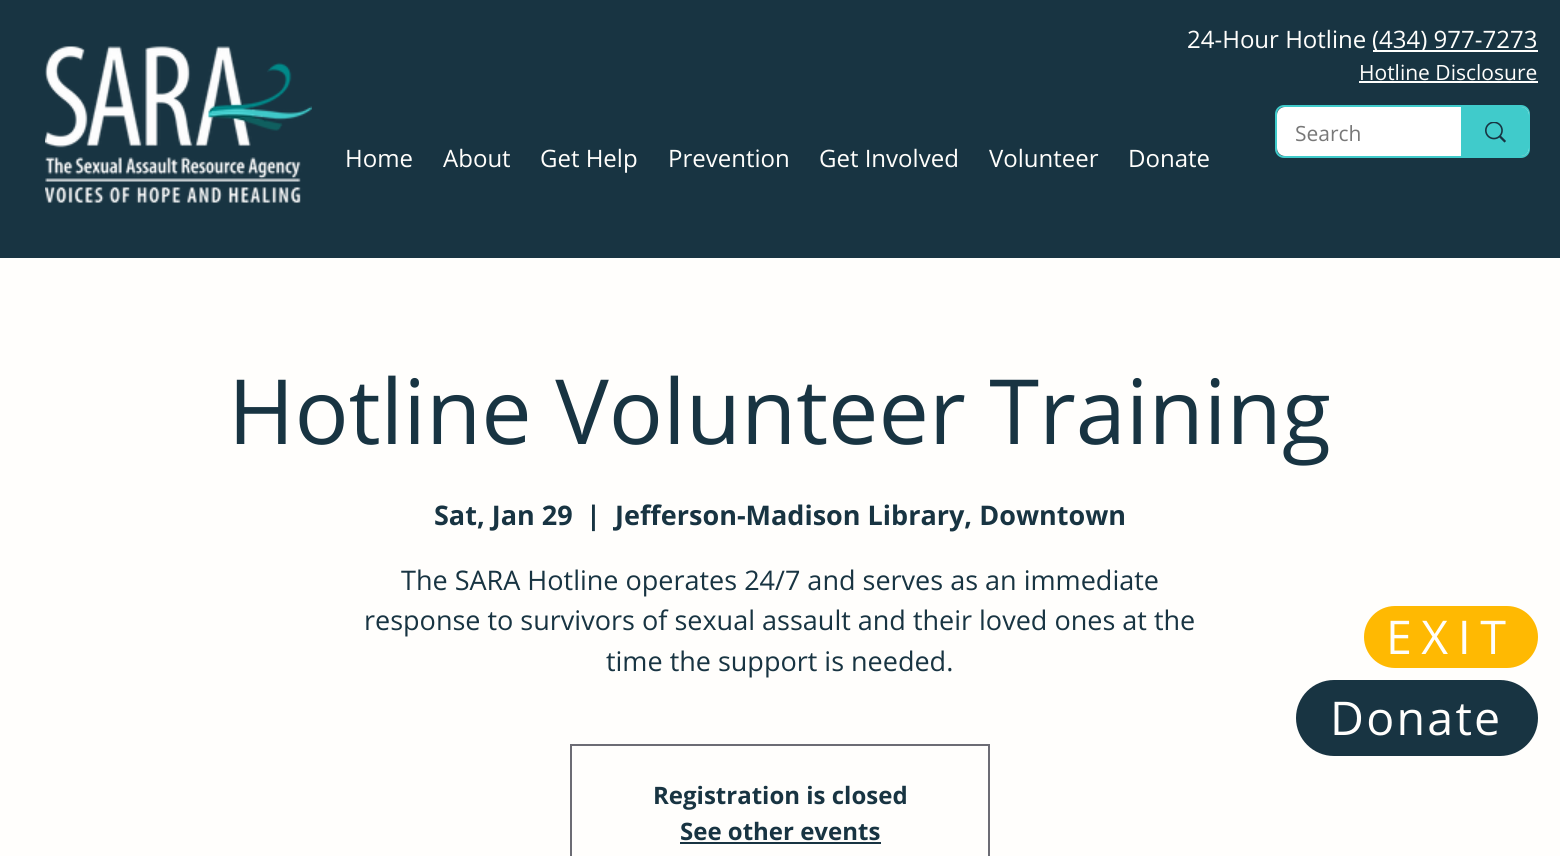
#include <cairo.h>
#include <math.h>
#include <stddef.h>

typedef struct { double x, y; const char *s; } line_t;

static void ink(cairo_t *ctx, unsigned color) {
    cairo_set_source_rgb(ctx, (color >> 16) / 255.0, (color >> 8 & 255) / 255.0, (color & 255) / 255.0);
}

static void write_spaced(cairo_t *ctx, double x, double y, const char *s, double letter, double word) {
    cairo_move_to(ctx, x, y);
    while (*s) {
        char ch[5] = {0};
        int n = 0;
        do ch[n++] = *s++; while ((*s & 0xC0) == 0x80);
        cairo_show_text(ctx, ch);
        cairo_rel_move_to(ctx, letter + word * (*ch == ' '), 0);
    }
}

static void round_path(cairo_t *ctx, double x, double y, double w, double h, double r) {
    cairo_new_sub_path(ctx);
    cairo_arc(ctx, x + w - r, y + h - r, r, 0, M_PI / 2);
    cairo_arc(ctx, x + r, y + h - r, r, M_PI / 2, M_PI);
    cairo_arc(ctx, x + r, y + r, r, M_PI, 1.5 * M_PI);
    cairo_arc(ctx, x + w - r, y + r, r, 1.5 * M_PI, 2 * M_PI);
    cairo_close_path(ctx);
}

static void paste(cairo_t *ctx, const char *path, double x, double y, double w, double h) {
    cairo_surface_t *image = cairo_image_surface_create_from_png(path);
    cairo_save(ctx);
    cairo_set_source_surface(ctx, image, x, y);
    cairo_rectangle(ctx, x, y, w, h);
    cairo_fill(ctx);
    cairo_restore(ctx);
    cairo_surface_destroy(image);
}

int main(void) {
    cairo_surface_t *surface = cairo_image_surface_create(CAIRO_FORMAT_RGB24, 1560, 856);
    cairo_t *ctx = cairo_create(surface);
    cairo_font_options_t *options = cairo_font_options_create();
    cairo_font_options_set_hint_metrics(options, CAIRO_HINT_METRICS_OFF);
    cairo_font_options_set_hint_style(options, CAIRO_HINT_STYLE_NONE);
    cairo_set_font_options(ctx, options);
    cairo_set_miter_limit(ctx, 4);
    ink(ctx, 0xFFFEFC);
    cairo_paint(ctx);
    ink(ctx, 0x183442);
    cairo_rectangle(ctx, 0, 0, 1560, 258);
    cairo_fill(ctx);
    paste(ctx, "media/1.png", 45, 46, 267, 157);
    cairo_select_font_face(ctx, "Open Sans", CAIRO_FONT_SLANT_NORMAL, CAIRO_FONT_WEIGHT_NORMAL);
    cairo_set_font_size(ctx, 24);
    ink(ctx, 0xFFFEFC);
    cairo_move_to(ctx, 1187, 48);
    cairo_show_text(ctx, "24-Hour Hotline");
    cairo_rectangle(ctx, 1373, 50, 165, 2);
    cairo_fill(ctx);
    cairo_move_to(ctx, 1372, 48);
    cairo_show_text(ctx, "(434) 977-7273");
    cairo_set_font_size(ctx, 21);
    cairo_move_to(ctx, 1359, 80);
    cairo_show_text(ctx, "Hotline Disclosure");
    cairo_rectangle(ctx, 1359, 81, 179, 2);
    cairo_fill(ctx);
    round_path(ctx, 1276, 106, 253, 51, 8);
    ink(ctx, 0x40CBCB);
    cairo_stroke(ctx);
    ink(ctx, 0xFFFFFF);
    round_path(ctx, 1277, 107, 252, 49, 8);
    cairo_fill(ctx);
    ink(ctx, 0x787878);
    cairo_move_to(ctx, 1295, 141);
    cairo_show_text(ctx, "Search");
    ink(ctx, 0x40CBCB);
    cairo_new_path(ctx);
    cairo_move_to(ctx, 1461, 107);
    cairo_line_to(ctx, 1521, 107);
    cairo_curve_to(ctx, 1525.5, 107, 1529, 110.5, 1529, 115);
    cairo_line_to(ctx, 1529, 148);
    cairo_curve_to(ctx, 1529, 152.5, 1525.5, 156, 1521, 156);
    cairo_line_to(ctx, 1461, 156);
    cairo_close_path(ctx);
    cairo_fill(ctx);
    paste(ctx, "media/2.png", 1485, 122, 21, 21);
    cairo_set_font_size(ctx, 24);
    ink(ctx, 0xFFFEFC);
    {
        static const line_t items[] = {
            {345, 167, "Home"},
            {443, 167, "About"},
            {540, 167, "Get Help"},
            {668, 167, "Prevention"},
            {819, 167, "Get Involved"},
            {989, 167, "Volunteer"},
            {1128, 167, "Donate"},
        };
        for (size_t i = 0; i < sizeof items / sizeof *items; i++) {
            cairo_move_to(ctx, items[i].x, items[i].y);
            cairo_show_text(ctx, items[i].s);
        }
    }
    cairo_set_font_size(ctx, 90);
    ink(ctx, 0x183442);
    cairo_move_to(ctx, 228, 444);
    cairo_show_text(ctx, "Hotline Volunteer Training");
    cairo_select_font_face(ctx, "Open Sans", CAIRO_FONT_SLANT_NORMAL, CAIRO_FONT_WEIGHT_BOLD);
    cairo_set_font_size(ctx, 27);
    {
        static const line_t items[] = {
            {434, 525, "Sat, Jan 29"},
            {586, 525, "|"},
            {615, 525, "Jefferson-Madison Library, Downtown"},
        };
        for (size_t i = 0; i < sizeof items / sizeof *items; i++) {
            cairo_move_to(ctx, items[i].x, items[i].y);
            cairo_show_text(ctx, items[i].s);
        }
    }
    cairo_select_font_face(ctx, "Open Sans", CAIRO_FONT_SLANT_NORMAL, CAIRO_FONT_WEIGHT_NORMAL);
    {
        static const line_t items[] = {
            {401, 590, "The SARA Hotline operates 24/7 and serves as an immediate"},
            {364, 630, "response to survivors of sexual assault and their loved ones at the"},
            {606, 671, "time the support is needed."},
        };
        for (size_t i = 0; i < sizeof items / sizeof *items; i++) {
            cairo_move_to(ctx, items[i].x, items[i].y);
            cairo_show_text(ctx, items[i].s);
        }
    }
    cairo_rectangle(ctx, 571, 745, 418, 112);
    ink(ctx, 0x6C6C74);
    cairo_stroke(ctx);
    cairo_select_font_face(ctx, "Open Sans", CAIRO_FONT_SLANT_NORMAL, CAIRO_FONT_WEIGHT_BOLD);
    cairo_set_font_size(ctx, 24);
    ink(ctx, 0x183442);
    cairo_move_to(ctx, 653, 804);
    cairo_show_text(ctx, "Registration is closed");
    cairo_move_to(ctx, 680, 840);
    cairo_show_text(ctx, "See other events");
    cairo_rectangle(ctx, 680, 842, 201, 2);
    cairo_fill(ctx);
    ink(ctx, 0xFFB902);
    round_path(ctx, 1362.5, 604.5, 177, 65, 32.5);
    cairo_fill_preserve(ctx);
    ink(ctx, 0xFFFEFC);
    cairo_set_line_width(ctx, 3);
    cairo_stroke(ctx);
    cairo_select_font_face(ctx, "Open Sans", CAIRO_FONT_SLANT_NORMAL, CAIRO_FONT_WEIGHT_NORMAL);
    cairo_set_font_size(ctx, 46.5);
    write_spaced(ctx, 1386, 654, "EXIT", 9.5, 0);
    ink(ctx, 0x183442);
    round_path(ctx, 1294.5, 678.5, 245, 79, 39.5);
    cairo_fill_preserve(ctx);
    ink(ctx, 0xFFFEFC);
    cairo_stroke(ctx);
    write_spaced(ctx, 1330, 735, "Donate", 2.25, 0);
    cairo_surface_write_to_png(surface, "image.png");
    cairo_font_options_destroy(options);
    cairo_destroy(ctx);
    cairo_surface_destroy(surface);
    return 0;
}
